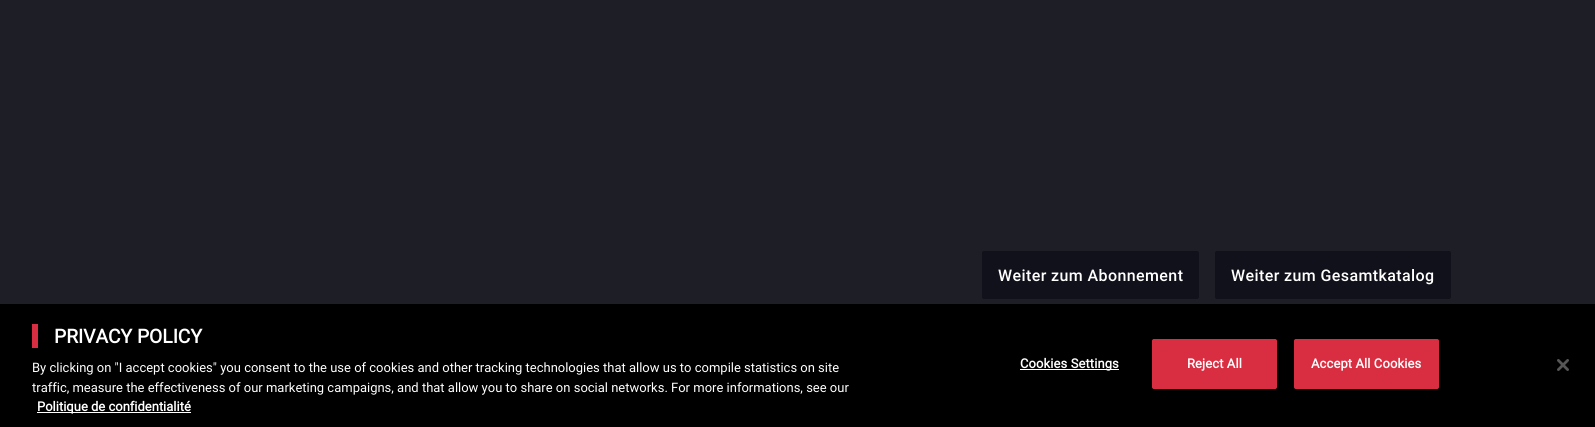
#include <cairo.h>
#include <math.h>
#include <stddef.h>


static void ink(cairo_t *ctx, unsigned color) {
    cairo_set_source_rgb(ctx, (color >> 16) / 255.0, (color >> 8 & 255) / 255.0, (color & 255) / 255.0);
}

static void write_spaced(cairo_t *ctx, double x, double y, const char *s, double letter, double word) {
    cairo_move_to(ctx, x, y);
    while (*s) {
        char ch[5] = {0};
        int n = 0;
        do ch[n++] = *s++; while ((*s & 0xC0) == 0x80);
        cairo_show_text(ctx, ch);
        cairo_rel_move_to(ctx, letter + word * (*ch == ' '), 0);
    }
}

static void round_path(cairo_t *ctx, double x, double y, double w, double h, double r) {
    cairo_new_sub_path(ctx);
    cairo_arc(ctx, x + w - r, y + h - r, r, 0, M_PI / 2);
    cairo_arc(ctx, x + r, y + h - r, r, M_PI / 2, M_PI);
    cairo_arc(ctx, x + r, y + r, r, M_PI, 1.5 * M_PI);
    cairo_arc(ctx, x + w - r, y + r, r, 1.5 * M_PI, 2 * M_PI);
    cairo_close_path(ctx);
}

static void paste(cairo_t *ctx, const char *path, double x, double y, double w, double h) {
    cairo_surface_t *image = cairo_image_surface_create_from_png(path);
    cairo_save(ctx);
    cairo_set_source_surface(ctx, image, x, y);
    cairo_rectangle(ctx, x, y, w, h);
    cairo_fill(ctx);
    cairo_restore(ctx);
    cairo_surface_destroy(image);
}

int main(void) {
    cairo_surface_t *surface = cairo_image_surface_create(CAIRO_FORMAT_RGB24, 1595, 427);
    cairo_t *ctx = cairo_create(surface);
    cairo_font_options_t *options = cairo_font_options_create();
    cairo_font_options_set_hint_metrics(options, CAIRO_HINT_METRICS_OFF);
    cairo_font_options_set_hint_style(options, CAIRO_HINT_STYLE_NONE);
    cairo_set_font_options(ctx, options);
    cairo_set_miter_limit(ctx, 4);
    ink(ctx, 0x1E1E27);
    cairo_paint(ctx);
    ink(ctx, 0x11111B);
    round_path(ctx, 982, 251, 217, 48, 2);
    cairo_fill(ctx);
    cairo_select_font_face(ctx, "Roboto Medium", CAIRO_FONT_SLANT_NORMAL, CAIRO_FONT_WEIGHT_NORMAL);
    cairo_set_font_size(ctx, 16);
    ink(ctx, 0xFFFFFF);
    write_spaced(ctx, 998, 281, "Weiter zum Abonnement", 0.4, 0);
    ink(ctx, 0x11111B);
    round_path(ctx, 1215, 251, 236, 48, 2);
    cairo_fill(ctx);
    ink(ctx, 0xFFFFFF);
    write_spaced(ctx, 1231, 281, "Weiter zum Gesamtkatalog", 0.4, 0);
    ink(ctx, 0x000000);
    cairo_rectangle(ctx, 0, 304, 1595, 123);
    cairo_fill(ctx);
    ink(ctx, 0xD92E41);
    cairo_rectangle(ctx, 32, 324, 6, 24);
    cairo_fill(ctx);
    cairo_select_font_face(ctx, "Roboto", CAIRO_FONT_SLANT_NORMAL, CAIRO_FONT_WEIGHT_BOLD);
    cairo_set_font_size(ctx, 19.25);
    ink(ctx, 0xFFFFFF);
    cairo_move_to(ctx, 54, 343);
    cairo_show_text(ctx, "PRIVACY POLICY");
    cairo_select_font_face(ctx, "Roboto", CAIRO_FONT_SLANT_NORMAL, CAIRO_FONT_WEIGHT_NORMAL);
    cairo_set_font_size(ctx, 13);
    cairo_move_to(ctx, 32, 372);
    cairo_show_text(ctx, "By clicking on \"I accept cookies\" you consent to the use of cookies and other tracking technologies that allow us to compile statistics on site");
    cairo_move_to(ctx, 32, 392);
    cairo_show_text(ctx, "traffic, measure the effectiveness of our marketing campaigns, and that allow you to share on social networks. For more informations, see our");
    cairo_rectangle(ctx, 37, 412, 154, 1);
    cairo_fill(ctx);
    cairo_select_font_face(ctx, "Roboto", CAIRO_FONT_SLANT_NORMAL, CAIRO_FONT_WEIGHT_BOLD);
    cairo_move_to(ctx, 37, 411);
    cairo_show_text(ctx, "Politique de confidentialité");
    cairo_rectangle(ctx, 1020, 369, 99, 1);
    cairo_fill(ctx);
    write_spaced(ctx, 1020, 368, "Cookies Settings", 0.1, 0);
    ink(ctx, 0xD92E41);
    round_path(ctx, 1152.5, 339.5, 124, 49, 1.5);
    cairo_fill_preserve(ctx);
    cairo_set_line_width(ctx, 1);
    cairo_stroke(ctx);
    ink(ctx, 0xFFFFFF);
    write_spaced(ctx, 1187, 368, "Reject All", 0.1, 0);
    ink(ctx, 0xD92E41);
    round_path(ctx, 1294.5, 339.5, 144, 49, 1.5);
    cairo_fill_preserve(ctx);
    cairo_stroke(ctx);
    ink(ctx, 0xFFFFFF);
    write_spaced(ctx, 1311, 368, "Accept All Cookies", 0.1, 0);
    paste(ctx, "media/1.png", 1557, 359, 12, 12);
    cairo_surface_write_to_png(surface, "image.png");
    cairo_font_options_destroy(options);
    cairo_destroy(ctx);
    cairo_surface_destroy(surface);
    return 0;
}
